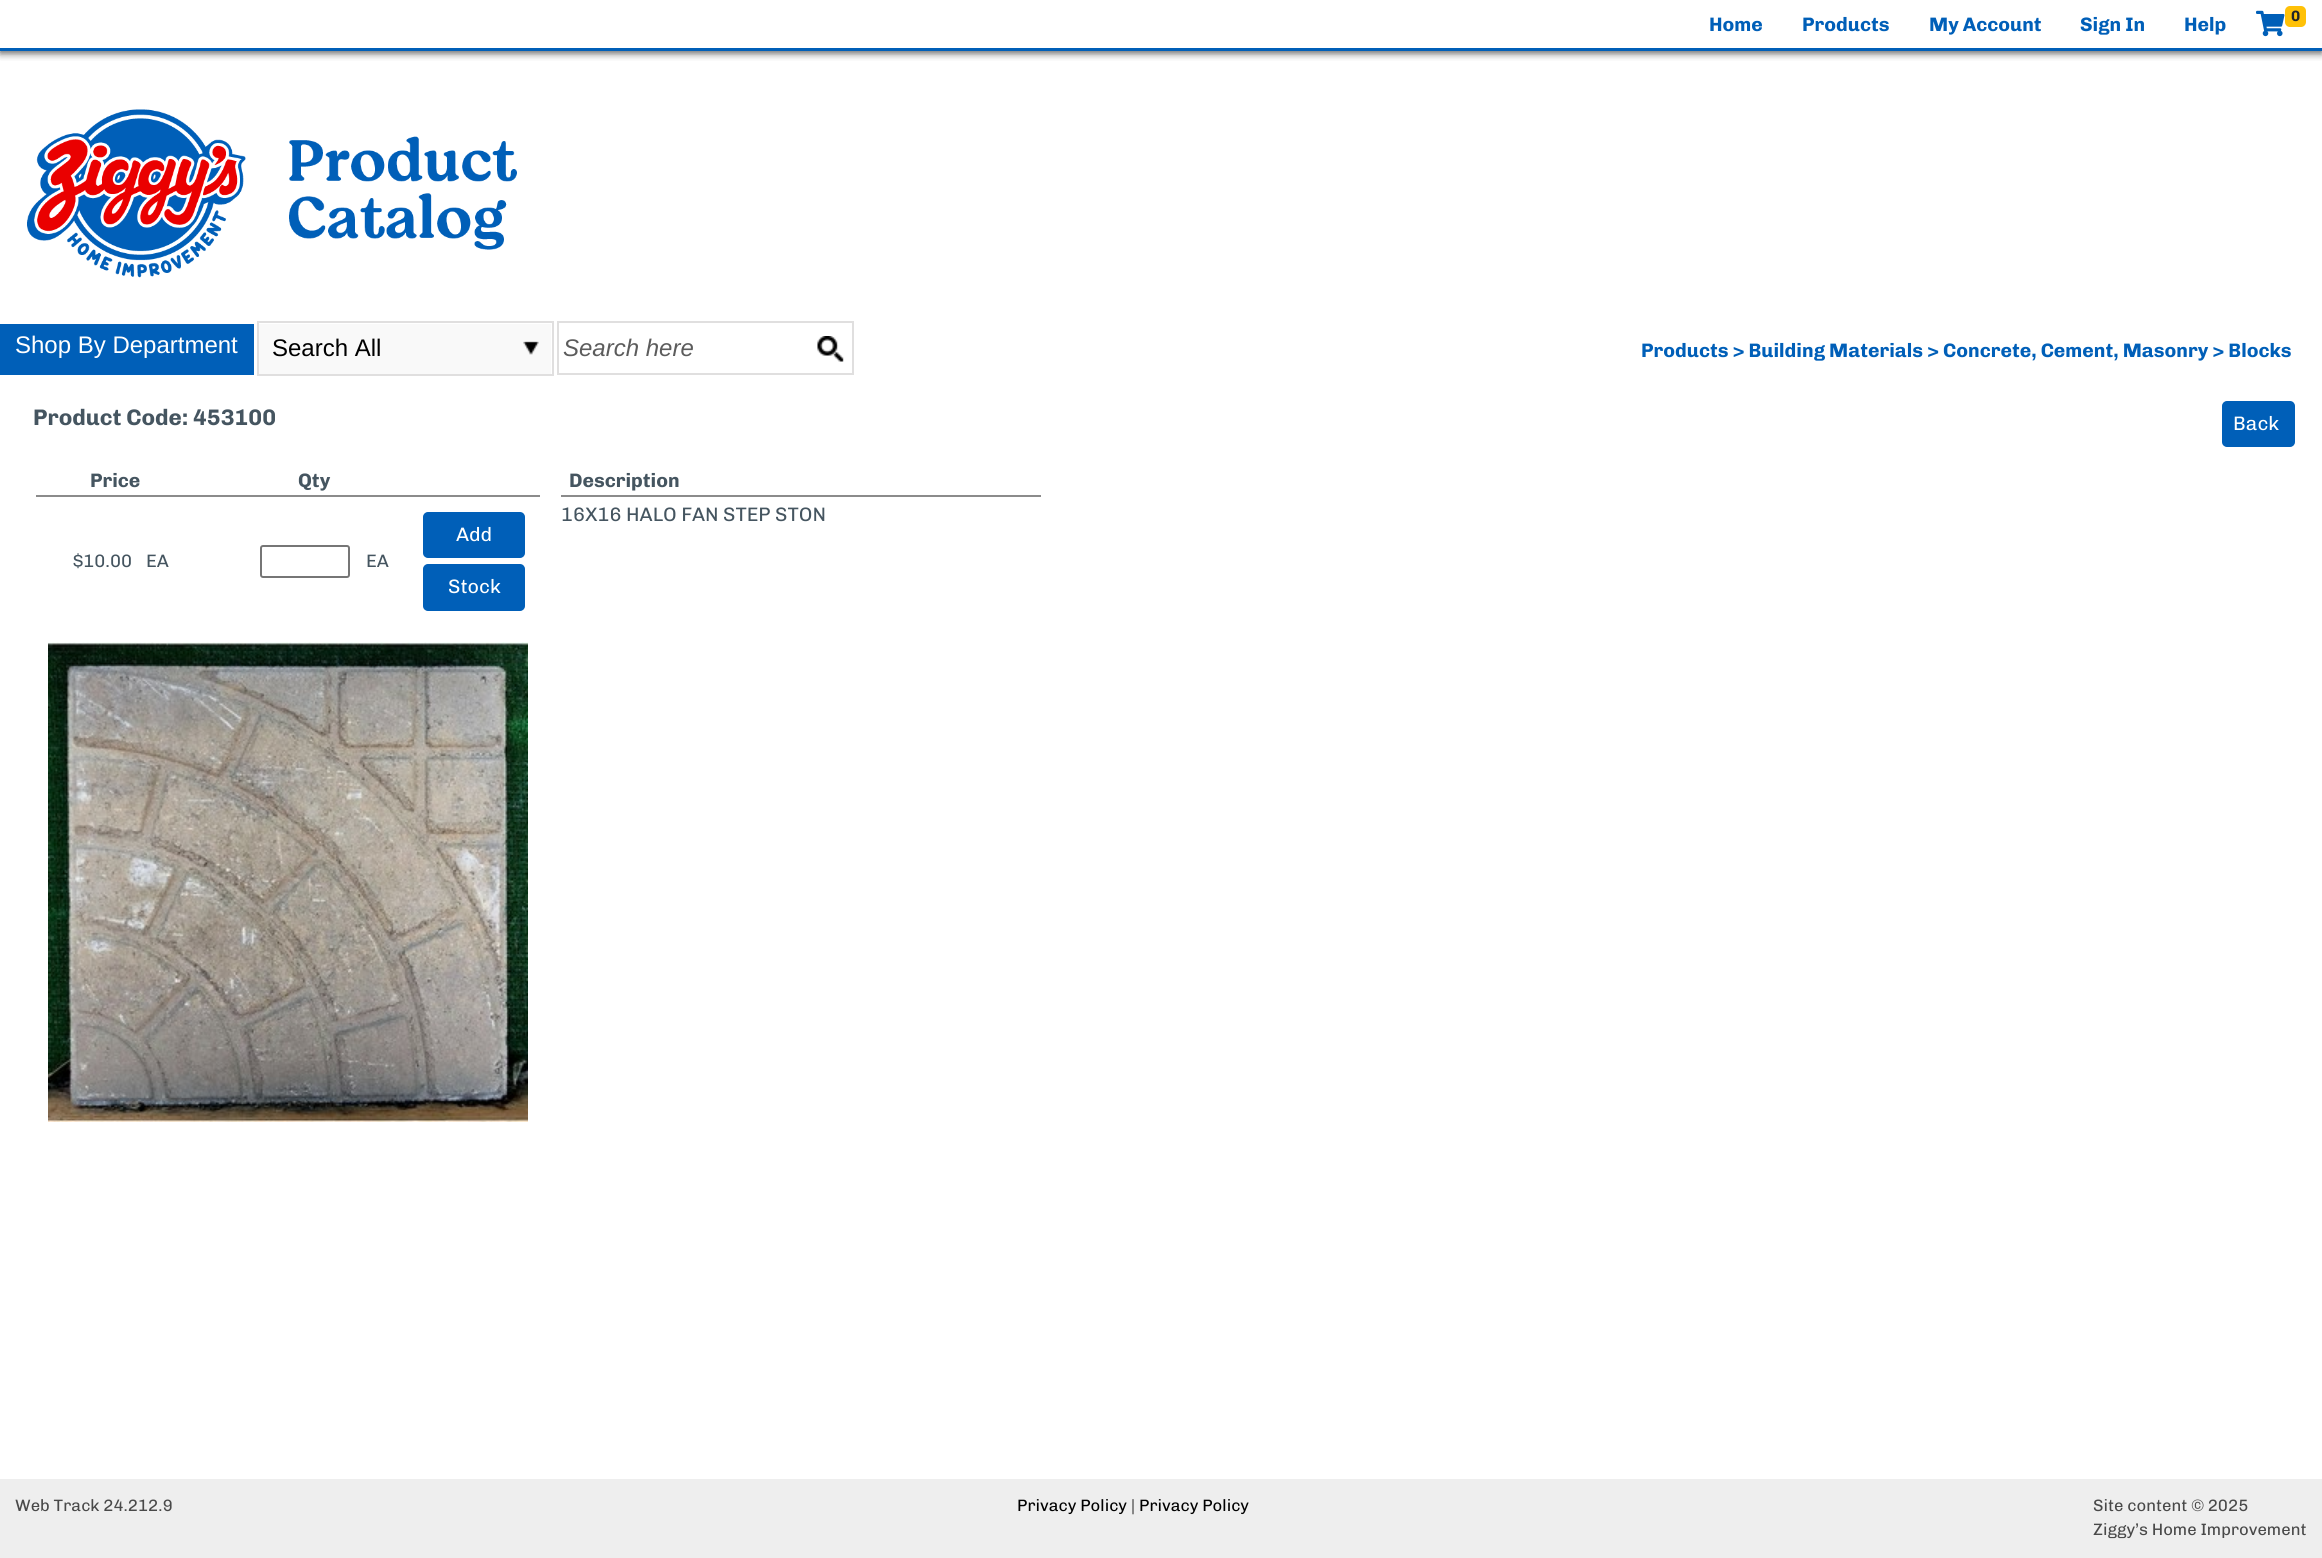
#include <cairo.h>
#include <math.h>
#include <stddef.h>

typedef struct { double x, y; const char *s; } line_t;
typedef struct { double x, y, w, h; unsigned color; } box_t;

static void ink(cairo_t *ctx, unsigned color) {
    cairo_set_source_rgb(ctx, (color >> 16) / 255.0, (color >> 8 & 255) / 255.0, (color & 255) / 255.0);
}

static void round_path(cairo_t *ctx, double x, double y, double w, double h, double r) {
    cairo_new_sub_path(ctx);
    cairo_arc(ctx, x + w - r, y + h - r, r, 0, M_PI / 2);
    cairo_arc(ctx, x + r, y + h - r, r, M_PI / 2, M_PI);
    cairo_arc(ctx, x + r, y + r, r, M_PI, 1.5 * M_PI);
    cairo_arc(ctx, x + w - r, y + r, r, 1.5 * M_PI, 2 * M_PI);
    cairo_close_path(ctx);
}

static void blur_box(cairo_t *ctx, double x, double y, double w, double h, double r, double blur, double alpha) {
    cairo_push_group_with_content(ctx, CAIRO_CONTENT_ALPHA);
    cairo_set_operator(ctx, CAIRO_OPERATOR_SOURCE);
    for (int i = 15; i >= -15 && fmin(w, h) + blur * i / 3 > 0; i -= 2) {
        double e = blur * i / 6;
        cairo_set_source_rgba(ctx, 0, 0, 0, alpha * erfc((i - 1) / 8.5) / 2);
        round_path(ctx, x - e, y - e, w + 2 * e, h + 2 * e, fmax(0, fmin(r + e + blur * .6, fmin(w, h) / 2 + e)));
        cairo_fill(ctx);
    }
    cairo_pattern_t *soft = cairo_pop_group(ctx);
    cairo_mask(ctx, soft);
    cairo_pattern_destroy(soft);
}

static void paste(cairo_t *ctx, const char *path, double x, double y, double w, double h) {
    cairo_surface_t *image = cairo_image_surface_create_from_png(path);
    cairo_save(ctx);
    cairo_set_source_surface(ctx, image, x, y);
    cairo_rectangle(ctx, x, y, w, h);
    cairo_fill(ctx);
    cairo_restore(ctx);
    cairo_surface_destroy(image);
}

int main(void) {
    cairo_surface_t *surface = cairo_image_surface_create(CAIRO_FORMAT_RGB24, 2322, 1558);
    cairo_t *ctx = cairo_create(surface);
    cairo_font_options_t *options = cairo_font_options_create();
    cairo_font_options_set_hint_metrics(options, CAIRO_HINT_METRICS_OFF);
    cairo_font_options_set_hint_style(options, CAIRO_HINT_STYLE_NONE);
    cairo_set_font_options(ctx, options);
    cairo_set_miter_limit(ctx, 4);
    ink(ctx, 0xFFFFFF);
    cairo_paint(ctx);
    cairo_save(ctx);
    cairo_rectangle(ctx, 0, 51, 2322, 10);
    cairo_clip(ctx);
    ink(ctx, 0x555555);
    blur_box(ctx, 0, 2, 2322, 51, 0, 4, 1);
    cairo_restore(ctx);
    ink(ctx, 0x005FB8);
    cairo_rectangle(ctx, 0, 48, 2322, 3);
    cairo_fill(ctx);
    cairo_select_font_face(ctx, "Chivo", CAIRO_FONT_SLANT_NORMAL, CAIRO_FONT_WEIGHT_BOLD);
    cairo_set_font_size(ctx, 19.5);
    {
        static const line_t items[] = {
            {1709, 31, "Home"},
            {1802, 31, "Products"},
            {1929, 31, "My Account"},
            {2080, 31, "Sign In"},
            {2184, 31, "Help"},
        };
        for (size_t i = 0; i < sizeof items / sizeof *items; i++) {
            cairo_move_to(ctx, items[i].x, items[i].y);
            cairo_show_text(ctx, items[i].s);
        }
    }
    paste(ctx, "media/1.png", 2256, 10, 29, 27);
    ink(ctx, 0xFFC107);
    round_path(ctx, 2285, 6, 21, 21, 5);
    cairo_fill(ctx);
    cairo_set_font_size(ctx, 15);
    ink(ctx, 0x212529);
    cairo_move_to(ctx, 2291, 21);
    cairo_show_text(ctx, "0");
    paste(ctx, "media/2.png", 27, 109, 490, 169);
    ink(ctx, 0x005FB8);
    cairo_rectangle(ctx, 0, 324, 254, 51);
    cairo_fill(ctx);
    cairo_select_font_face(ctx, "Liberation Sans", CAIRO_FONT_SLANT_NORMAL, CAIRO_FONT_WEIGHT_NORMAL);
    cairo_set_font_size(ctx, 24);
    ink(ctx, 0xFFFFFF);
    cairo_move_to(ctx, 15, 353);
    cairo_show_text(ctx, "Shop By Department");
    {
        static const box_t items[] = {
            {257, 321, 297, 2, 0xE0DFDF},
            {552, 321, 2, 54, 0xE0DFDF},
            {257, 374, 297, 2, 0xE0DFDF},
            {259, 324, 292, 50, 0xF9F9F9},
        };
        for (size_t i = 0; i < sizeof items / sizeof *items; i++) {
            ink(ctx, items[i].color);
            cairo_rectangle(ctx, items[i].x, items[i].y, items[i].w, items[i].h);
            cairo_fill(ctx);
        }
    }
    paste(ctx, "media/3.png", 523, 341, 16, 14);
    ink(ctx, 0xE0DFDF);
    cairo_rectangle(ctx, 257, 321, 2, 54);
    cairo_fill(ctx);
    ink(ctx, 0x000000);
    cairo_move_to(ctx, 272, 356);
    cairo_show_text(ctx, "Search All");
    cairo_rectangle(ctx, 558, 322, 295, 52);
    ink(ctx, 0xE0DFDF);
    cairo_stroke(ctx);
    cairo_select_font_face(ctx, "Liberation Sans", CAIRO_FONT_SLANT_ITALIC, CAIRO_FONT_WEIGHT_NORMAL);
    ink(ctx, 0x5C5C5C);
    cairo_move_to(ctx, 563, 356);
    cairo_show_text(ctx, "Search here");
    paste(ctx, "media/4.png", 817, 336, 27, 26);
    cairo_select_font_face(ctx, "Chivo", CAIRO_FONT_SLANT_NORMAL, CAIRO_FONT_WEIGHT_BOLD);
    cairo_set_font_size(ctx, 19.5);
    ink(ctx, 0x005FB8);
    cairo_move_to(ctx, 1641, 357);
    cairo_show_text(ctx, "Products > Building Materials > Concrete, Cement, Masonry > Blocks");
    cairo_set_font_size(ctx, 22.5);
    ink(ctx, 0x455560);
    cairo_move_to(ctx, 33, 425);
    cairo_show_text(ctx, "Product Code: 453100");
    ink(ctx, 0x005FB8);
    round_path(ctx, 2223, 402, 71, 44, 4);
    cairo_fill_preserve(ctx);
    cairo_stroke(ctx);
    cairo_select_font_face(ctx, "Chivo", CAIRO_FONT_SLANT_NORMAL, CAIRO_FONT_WEIGHT_NORMAL);
    cairo_set_font_size(ctx, 19.5);
    ink(ctx, 0xFFFFFF);
    cairo_move_to(ctx, 2233, 430);
    cairo_show_text(ctx, "Back");
    ink(ctx, 0x8B8B8B);
    cairo_rectangle(ctx, 36, 495, 504, 2);
    cairo_fill(ctx);
    cairo_select_font_face(ctx, "Chivo", CAIRO_FONT_SLANT_NORMAL, CAIRO_FONT_WEIGHT_BOLD);
    ink(ctx, 0x455560);
    cairo_move_to(ctx, 90, 487);
    cairo_show_text(ctx, "Price");
    cairo_move_to(ctx, 298, 487);
    cairo_show_text(ctx, "Qty");
    cairo_select_font_face(ctx, "Chivo", CAIRO_FONT_SLANT_NORMAL, CAIRO_FONT_WEIGHT_NORMAL);
    cairo_set_font_size(ctx, 18);
    cairo_move_to(ctx, 73, 567);
    cairo_show_text(ctx, "$10.00");
    cairo_move_to(ctx, 146, 567);
    cairo_show_text(ctx, "EA");
    round_path(ctx, 261, 546, 88, 31, 2);
    ink(ctx, 0x767676);
    cairo_stroke(ctx);
    ink(ctx, 0x455560);
    cairo_move_to(ctx, 366, 567);
    cairo_show_text(ctx, "EA");
    ink(ctx, 0x005FB8);
    round_path(ctx, 424, 513, 100, 44, 4);
    cairo_fill_preserve(ctx);
    cairo_stroke(ctx);
    cairo_set_font_size(ctx, 19.5);
    ink(ctx, 0xFFFFFF);
    cairo_move_to(ctx, 456, 541);
    cairo_show_text(ctx, "Add");
    ink(ctx, 0x005FB8);
    round_path(ctx, 424, 565, 100, 45, 4);
    cairo_fill_preserve(ctx);
    cairo_stroke(ctx);
    ink(ctx, 0xFFFFFF);
    cairo_move_to(ctx, 448, 593);
    cairo_show_text(ctx, "Stock");
    paste(ctx, "media/5.png", 48, 642, 480, 480);
    ink(ctx, 0x8B8B8B);
    cairo_rectangle(ctx, 561, 495, 480, 2);
    cairo_fill(ctx);
    cairo_select_font_face(ctx, "Chivo", CAIRO_FONT_SLANT_NORMAL, CAIRO_FONT_WEIGHT_BOLD);
    ink(ctx, 0x455560);
    cairo_move_to(ctx, 569, 487);
    cairo_show_text(ctx, "Description");
    cairo_select_font_face(ctx, "Chivo", CAIRO_FONT_SLANT_NORMAL, CAIRO_FONT_WEIGHT_NORMAL);
    cairo_move_to(ctx, 561, 521);
    cairo_show_text(ctx, "16X16 HALO FAN STEP STON");
    ink(ctx, 0xEEEEEE);
    cairo_rectangle(ctx, 0, 1479, 2322, 79);
    cairo_fill(ctx);
    cairo_set_font_size(ctx, 16.5);
    ink(ctx, 0x494949);
    cairo_move_to(ctx, 15, 1511);
    cairo_show_text(ctx, "Web Track 24.212.9");
    ink(ctx, 0x000000);
    cairo_move_to(ctx, 1017, 1511);
    cairo_show_text(ctx, "Privacy Policy");
    ink(ctx, 0x494949);
    cairo_move_to(ctx, 1131, 1511);
    cairo_show_text(ctx, "|");
    ink(ctx, 0x000000);
    cairo_move_to(ctx, 1139, 1511);
    cairo_show_text(ctx, "Privacy Policy");
    ink(ctx, 0x494949);
    cairo_move_to(ctx, 2093, 1511);
    cairo_show_text(ctx, "Site content © 2025");
    cairo_move_to(ctx, 2093, 1535);
    cairo_show_text(ctx, "Ziggy’s Home Improvement");
    cairo_surface_write_to_png(surface, "image.png");
    cairo_font_options_destroy(options);
    cairo_destroy(ctx);
    cairo_surface_destroy(surface);
    return 0;
}
